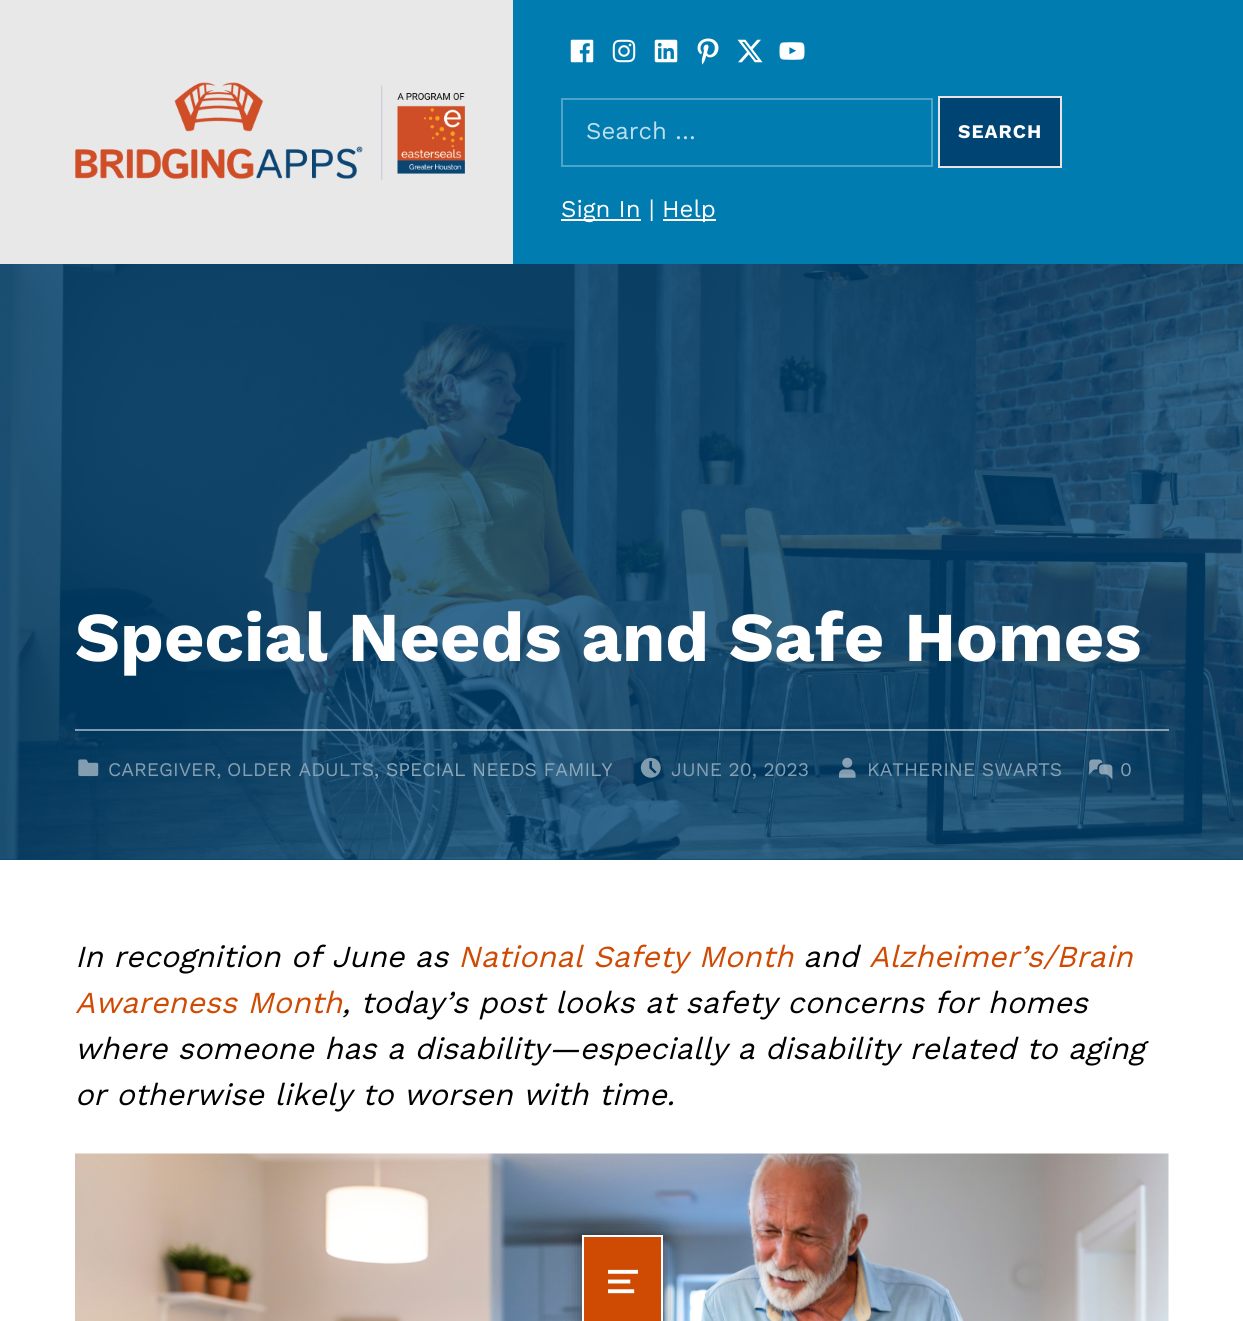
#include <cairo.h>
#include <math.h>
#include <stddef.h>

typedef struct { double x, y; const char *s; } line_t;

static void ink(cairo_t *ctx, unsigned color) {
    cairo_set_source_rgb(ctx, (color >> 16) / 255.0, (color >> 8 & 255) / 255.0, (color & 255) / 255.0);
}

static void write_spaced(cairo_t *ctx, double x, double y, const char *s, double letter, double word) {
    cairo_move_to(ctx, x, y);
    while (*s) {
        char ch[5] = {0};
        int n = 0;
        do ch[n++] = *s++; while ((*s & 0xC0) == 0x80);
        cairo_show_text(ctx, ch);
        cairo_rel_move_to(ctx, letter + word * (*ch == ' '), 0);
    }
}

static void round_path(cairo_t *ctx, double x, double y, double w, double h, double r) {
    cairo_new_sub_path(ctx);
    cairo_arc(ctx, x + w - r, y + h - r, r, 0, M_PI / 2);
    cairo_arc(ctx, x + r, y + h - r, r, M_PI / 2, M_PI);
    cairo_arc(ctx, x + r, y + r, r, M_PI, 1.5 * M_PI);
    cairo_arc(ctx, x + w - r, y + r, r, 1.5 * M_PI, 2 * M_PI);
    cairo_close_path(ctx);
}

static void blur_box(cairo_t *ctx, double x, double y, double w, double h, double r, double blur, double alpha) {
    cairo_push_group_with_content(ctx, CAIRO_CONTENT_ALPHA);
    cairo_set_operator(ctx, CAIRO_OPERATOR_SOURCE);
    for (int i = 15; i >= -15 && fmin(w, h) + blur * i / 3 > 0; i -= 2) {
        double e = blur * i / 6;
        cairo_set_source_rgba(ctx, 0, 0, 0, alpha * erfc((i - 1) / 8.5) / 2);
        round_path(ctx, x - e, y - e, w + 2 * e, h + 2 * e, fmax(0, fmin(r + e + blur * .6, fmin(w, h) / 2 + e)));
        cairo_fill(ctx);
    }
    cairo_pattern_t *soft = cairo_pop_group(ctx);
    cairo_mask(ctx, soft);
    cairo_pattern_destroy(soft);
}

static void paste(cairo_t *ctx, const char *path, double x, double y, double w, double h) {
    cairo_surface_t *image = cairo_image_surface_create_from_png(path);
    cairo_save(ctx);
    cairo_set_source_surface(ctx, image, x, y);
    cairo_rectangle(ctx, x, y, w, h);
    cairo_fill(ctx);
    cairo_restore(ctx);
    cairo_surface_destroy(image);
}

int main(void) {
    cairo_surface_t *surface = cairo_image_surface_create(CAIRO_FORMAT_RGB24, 1243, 1321);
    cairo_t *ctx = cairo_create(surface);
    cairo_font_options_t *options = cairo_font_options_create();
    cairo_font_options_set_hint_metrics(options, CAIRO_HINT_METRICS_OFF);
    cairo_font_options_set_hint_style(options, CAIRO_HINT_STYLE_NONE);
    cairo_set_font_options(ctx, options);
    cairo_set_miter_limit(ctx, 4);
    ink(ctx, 0xFFFFFF);
    cairo_paint(ctx);
    ink(ctx, 0x007CB1);
    cairo_rectangle(ctx, 513, 0, 730, 264);
    cairo_fill(ctx);
    ink(ctx, 0xE8E8E8);
    cairo_rectangle(ctx, 0, 0, 513, 264);
    cairo_fill(ctx);
    paste(ctx, "media/1.png", 75, 82, 390, 98);
    paste(ctx, "media/2.png", 570, 39, 24, 24);
    paste(ctx, "media/3.png", 612, 39, 24, 24);
    paste(ctx, "media/4.png", 654, 39, 24, 24);
    paste(ctx, "media/5.png", 697, 38, 22, 27);
    paste(ctx, "media/6.png", 737, 39, 26, 24);
    paste(ctx, "media/7.png", 779, 42, 26, 18);
    cairo_rectangle(ctx, 562, 99, 370, 67);
    ink(ctx, 0x4DA3C8);
    cairo_stroke(ctx);
    cairo_select_font_face(ctx, "Work Sans", CAIRO_FONT_SLANT_NORMAL, CAIRO_FONT_WEIGHT_NORMAL);
    cairo_set_font_size(ctx, 24);
    ink(ctx, 0xBFDEEC);
    cairo_move_to(ctx, 586, 139);
    cairo_show_text(ctx, "Search …");
    ink(ctx, 0x004473);
    cairo_rectangle(ctx, 939, 97, 122, 70);
    cairo_fill_preserve(ctx);
    ink(ctx, 0xE7E4E4);
    cairo_stroke(ctx);
    cairo_select_font_face(ctx, "Work Sans", CAIRO_FONT_SLANT_NORMAL, CAIRO_FONT_WEIGHT_BOLD);
    cairo_set_font_size(ctx, 19.25);
    ink(ctx, 0xFFFFFF);
    write_spaced(ctx, 958, 138, "SEARCH", 1, 0);
    cairo_rectangle(ctx, 561, 219, 80, 2);
    cairo_fill(ctx);
    cairo_select_font_face(ctx, "Work Sans", CAIRO_FONT_SLANT_NORMAL, CAIRO_FONT_WEIGHT_NORMAL);
    cairo_set_font_size(ctx, 24);
    cairo_move_to(ctx, 561, 217);
    cairo_show_text(ctx, "Sign In |");
    cairo_rectangle(ctx, 663, 219, 53, 2);
    cairo_fill(ctx);
    cairo_move_to(ctx, 662, 217);
    cairo_show_text(ctx, "Help");
    paste(ctx, "media/14.png", 75, 1153, 1094, 168);
    ink(ctx, 0x000000);
    blur_box(ctx, 582, 1235, 81, 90, 0, 9.5, 0.5);
    ink(ctx, 0xCF4B04);
    cairo_rectangle(ctx, 583, 1236, 79, 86);
    cairo_fill_preserve(ctx);
    ink(ctx, 0xFFFFFF);
    cairo_stroke(ctx);
    paste(ctx, "media/8.png", 608, 1269, 30, 25);
    ink(ctx, 0x004473);
    cairo_rectangle(ctx, 0, 264, 1243, 596);
    cairo_fill(ctx);
    paste(ctx, "media/9.png", 0, 264, 1243, 596);
    cairo_select_font_face(ctx, "Work Sans", CAIRO_FONT_SLANT_NORMAL, CAIRO_FONT_WEIGHT_BOLD);
    cairo_set_font_size(ctx, 69.9);
    ink(ctx, 0xFFFFFF);
    cairo_move_to(ctx, 75, 661);
    cairo_show_text(ctx, "Special Needs and Safe Homes");
    cairo_set_source_rgba(ctx, 1, 1, 1, 0.5);
    cairo_rectangle(ctx, 75, 729, 1094, 2);
    cairo_fill(ctx);
    paste(ctx, "media/10.png", 78, 759, 21, 18);
    cairo_select_font_face(ctx, "Work Sans", CAIRO_FONT_SLANT_NORMAL, CAIRO_FONT_WEIGHT_NORMAL);
    cairo_set_font_size(ctx, 19.25);
    ink(ctx, 0x86A0B2);
    cairo_move_to(ctx, 108, 776);
    cairo_show_text(ctx, "CAREGIVER,");
    cairo_move_to(ctx, 227, 776);
    cairo_show_text(ctx, "OLDER ADULTS");
    ink(ctx, 0x8CA7B8);
    cairo_move_to(ctx, 374, 776);
    cairo_show_text(ctx, ",");
    cairo_move_to(ctx, 386, 776);
    cairo_show_text(ctx, "SPECIAL NEEDS FAMILY");
    paste(ctx, "media/11.png", 640, 757, 21, 21);
    ink(ctx, 0x86A0B2);
    cairo_move_to(ctx, 671, 776);
    cairo_show_text(ctx, "JUNE 20, 2023");
    paste(ctx, "media/12.png", 839, 757, 17, 21);
    cairo_move_to(ctx, 867, 776);
    cairo_show_text(ctx, "KATHERINE SWARTS");
    paste(ctx, "media/13.png", 1089, 759, 24, 21);
    cairo_move_to(ctx, 1120, 776);
    cairo_show_text(ctx, "0");
    cairo_select_font_face(ctx, "Work Sans", CAIRO_FONT_SLANT_ITALIC, CAIRO_FONT_WEIGHT_NORMAL);
    cairo_set_font_size(ctx, 30.55);
    ink(ctx, 0x000000);
    cairo_move_to(ctx, 75, 967);
    cairo_show_text(ctx, "In recognition of June as");
    ink(ctx, 0xCF4B04);
    cairo_move_to(ctx, 458, 967);
    cairo_show_text(ctx, "National Safety Month");
    ink(ctx, 0x000000);
    cairo_move_to(ctx, 803, 967);
    cairo_show_text(ctx, "and");
    ink(ctx, 0xCF4B04);
    cairo_move_to(ctx, 869, 967);
    cairo_show_text(ctx, "Alzheimer’s/Brain");
    cairo_move_to(ctx, 75, 1013);
    cairo_show_text(ctx, "Awareness Month");
    ink(ctx, 0x000000);
    {
        static const line_t items[] = {
            {342, 1013, ", today’s post looks at safety concerns for homes"},
            {75, 1059, "where someone has a disability—especially a disability related to aging"},
            {75, 1105, "or otherwise likely to worsen with time."},
        };
        for (size_t i = 0; i < sizeof items / sizeof *items; i++) {
            cairo_move_to(ctx, items[i].x, items[i].y);
            cairo_show_text(ctx, items[i].s);
        }
    }
    cairo_surface_write_to_png(surface, "image.png");
    cairo_font_options_destroy(options);
    cairo_destroy(ctx);
    cairo_surface_destroy(surface);
    return 0;
}
